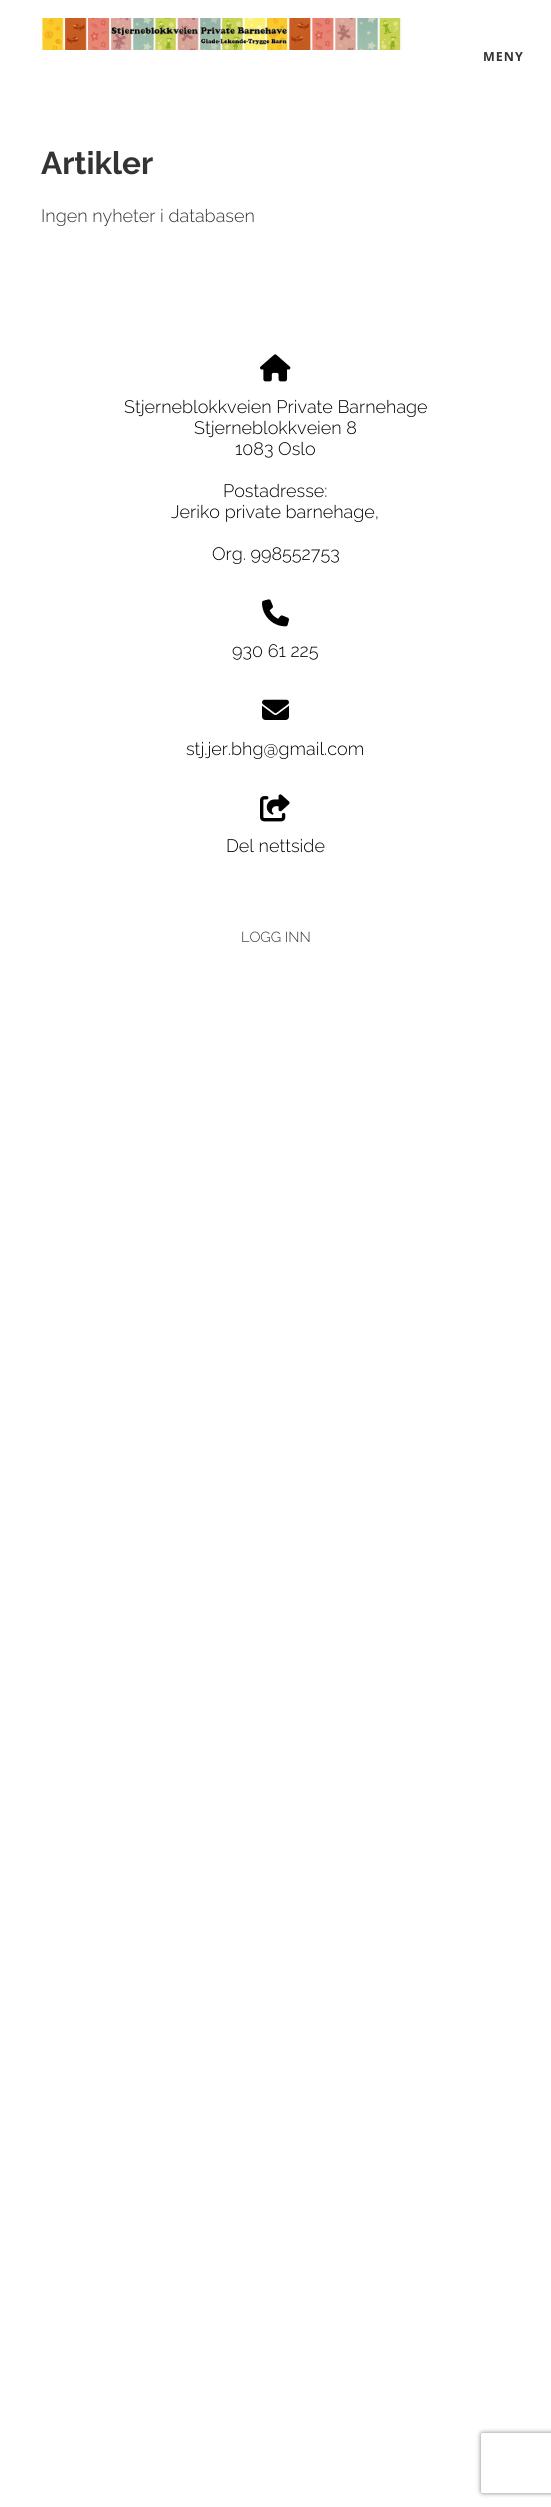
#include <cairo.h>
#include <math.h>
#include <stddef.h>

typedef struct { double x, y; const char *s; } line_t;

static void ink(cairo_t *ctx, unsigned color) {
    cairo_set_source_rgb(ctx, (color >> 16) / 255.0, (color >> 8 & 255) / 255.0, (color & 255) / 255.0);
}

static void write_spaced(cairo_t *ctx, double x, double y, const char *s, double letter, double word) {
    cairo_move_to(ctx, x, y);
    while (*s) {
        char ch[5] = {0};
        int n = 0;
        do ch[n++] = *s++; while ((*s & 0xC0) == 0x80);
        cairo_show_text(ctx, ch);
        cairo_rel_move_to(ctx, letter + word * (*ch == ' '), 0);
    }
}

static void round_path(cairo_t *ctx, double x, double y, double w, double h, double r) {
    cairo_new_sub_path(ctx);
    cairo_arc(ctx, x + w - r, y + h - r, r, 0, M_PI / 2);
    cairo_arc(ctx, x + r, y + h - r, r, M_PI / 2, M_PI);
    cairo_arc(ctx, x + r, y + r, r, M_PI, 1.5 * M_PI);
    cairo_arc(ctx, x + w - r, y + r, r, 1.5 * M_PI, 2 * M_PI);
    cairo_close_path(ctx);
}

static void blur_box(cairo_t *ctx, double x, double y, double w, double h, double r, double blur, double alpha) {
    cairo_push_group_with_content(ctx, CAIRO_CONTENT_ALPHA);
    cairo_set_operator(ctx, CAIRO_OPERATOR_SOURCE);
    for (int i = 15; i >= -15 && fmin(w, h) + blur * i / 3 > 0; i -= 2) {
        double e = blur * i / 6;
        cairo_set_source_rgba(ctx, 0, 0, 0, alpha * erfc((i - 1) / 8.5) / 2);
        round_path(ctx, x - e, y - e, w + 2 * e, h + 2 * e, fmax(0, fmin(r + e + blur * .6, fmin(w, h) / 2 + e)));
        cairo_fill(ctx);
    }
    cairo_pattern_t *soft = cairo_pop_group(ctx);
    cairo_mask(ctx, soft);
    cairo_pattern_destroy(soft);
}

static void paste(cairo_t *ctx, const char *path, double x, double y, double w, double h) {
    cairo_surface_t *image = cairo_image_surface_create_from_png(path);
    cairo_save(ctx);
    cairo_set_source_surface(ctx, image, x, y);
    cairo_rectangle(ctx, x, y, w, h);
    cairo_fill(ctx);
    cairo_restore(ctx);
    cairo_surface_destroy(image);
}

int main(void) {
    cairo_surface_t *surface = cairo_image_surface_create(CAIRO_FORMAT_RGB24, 551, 2507);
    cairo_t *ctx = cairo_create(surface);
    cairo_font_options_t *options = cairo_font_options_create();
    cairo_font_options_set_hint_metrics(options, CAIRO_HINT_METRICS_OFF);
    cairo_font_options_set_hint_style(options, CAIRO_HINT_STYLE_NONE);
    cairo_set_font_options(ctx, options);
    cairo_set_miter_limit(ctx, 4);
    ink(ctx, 0xFFFFFF);
    cairo_paint(ctx);
    paste(ctx, "media/1.png", 41, 18, 361, 32);
    cairo_select_font_face(ctx, "Open Sans", CAIRO_FONT_SLANT_NORMAL, CAIRO_FONT_WEIGHT_BOLD);
    cairo_set_font_size(ctx, 12.5);
    ink(ctx, 0x333333);
    write_spaced(ctx, 483, 61, "MENY", 1, 0);
    cairo_select_font_face(ctx, "Raleway", CAIRO_FONT_SLANT_NORMAL, CAIRO_FONT_WEIGHT_BOLD);
    cairo_set_font_size(ctx, 31.5);
    cairo_move_to(ctx, 41, 174);
    cairo_show_text(ctx, "Artikler");
    cairo_select_font_face(ctx, "Raleway Light", CAIRO_FONT_SLANT_NORMAL, CAIRO_FONT_WEIGHT_NORMAL);
    cairo_set_font_size(ctx, 18);
    cairo_move_to(ctx, 41, 222);
    cairo_show_text(ctx, "Ingen nyheter i databasen");
    paste(ctx, "media/2.png", 260, 354, 31, 28);
    ink(ctx, 0x000000);
    {
        static const line_t items[] = {
            {124, 413, "Stjerneblokkveien Private Barnehage"},
            {194, 434, "Stjerneblokkveien 8"},
            {235, 455, "1083 Oslo"},
            {223, 497, "Postadresse:"},
            {171, 518, "Jeriko private barnehage,"},
            {212, 560, "Org. 998552753"},
        };
        for (size_t i = 0; i < sizeof items / sizeof *items; i++) {
            cairo_move_to(ctx, items[i].x, items[i].y);
            cairo_show_text(ctx, items[i].s);
        }
    }
    paste(ctx, "media/3.png", 262, 599, 27, 28);
    cairo_move_to(ctx, 232, 657);
    cairo_show_text(ctx, "930 61 225");
    paste(ctx, "media/4.png", 262, 699, 27, 21);
    cairo_move_to(ctx, 186, 755);
    cairo_show_text(ctx, "stj.jer.bhg@gmail.com");
    paste(ctx, "media/5.png", 260, 794, 30, 28);
    cairo_move_to(ctx, 226, 852);
    cairo_show_text(ctx, "Del nettside");
    cairo_set_font_size(ctx, 14.5);
    ink(ctx, 0x333333);
    cairo_move_to(ctx, 241, 942);
    cairo_show_text(ctx, "LOGG INN");
    cairo_save(ctx);
    cairo_set_fill_rule(ctx, CAIRO_FILL_RULE_EVEN_ODD);
    cairo_new_path(ctx);
    cairo_move_to(ctx, 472, 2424);
    cairo_line_to(ctx, 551, 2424);
    cairo_line_to(ctx, 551, 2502);
    cairo_line_to(ctx, 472, 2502);
    cairo_close_path(ctx);
    cairo_move_to(ctx, 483, 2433);
    cairo_line_to(ctx, 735, 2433);
    cairo_curve_to(ctx, 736, 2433, 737, 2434, 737, 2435);
    cairo_line_to(ctx, 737, 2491);
    cairo_curve_to(ctx, 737, 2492, 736, 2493, 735, 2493);
    cairo_line_to(ctx, 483, 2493);
    cairo_curve_to(ctx, 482, 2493, 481, 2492, 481, 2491);
    cairo_line_to(ctx, 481, 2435);
    cairo_curve_to(ctx, 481, 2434, 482, 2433, 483, 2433);
    cairo_close_path(ctx);
    cairo_clip(ctx);
    ink(ctx, 0x808080);
    blur_box(ctx, 481, 2433, 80, 60, 2, 2.5, 1);
    cairo_restore(ctx);
    cairo_surface_write_to_png(surface, "image.png");
    cairo_font_options_destroy(options);
    cairo_destroy(ctx);
    cairo_surface_destroy(surface);
    return 0;
}
